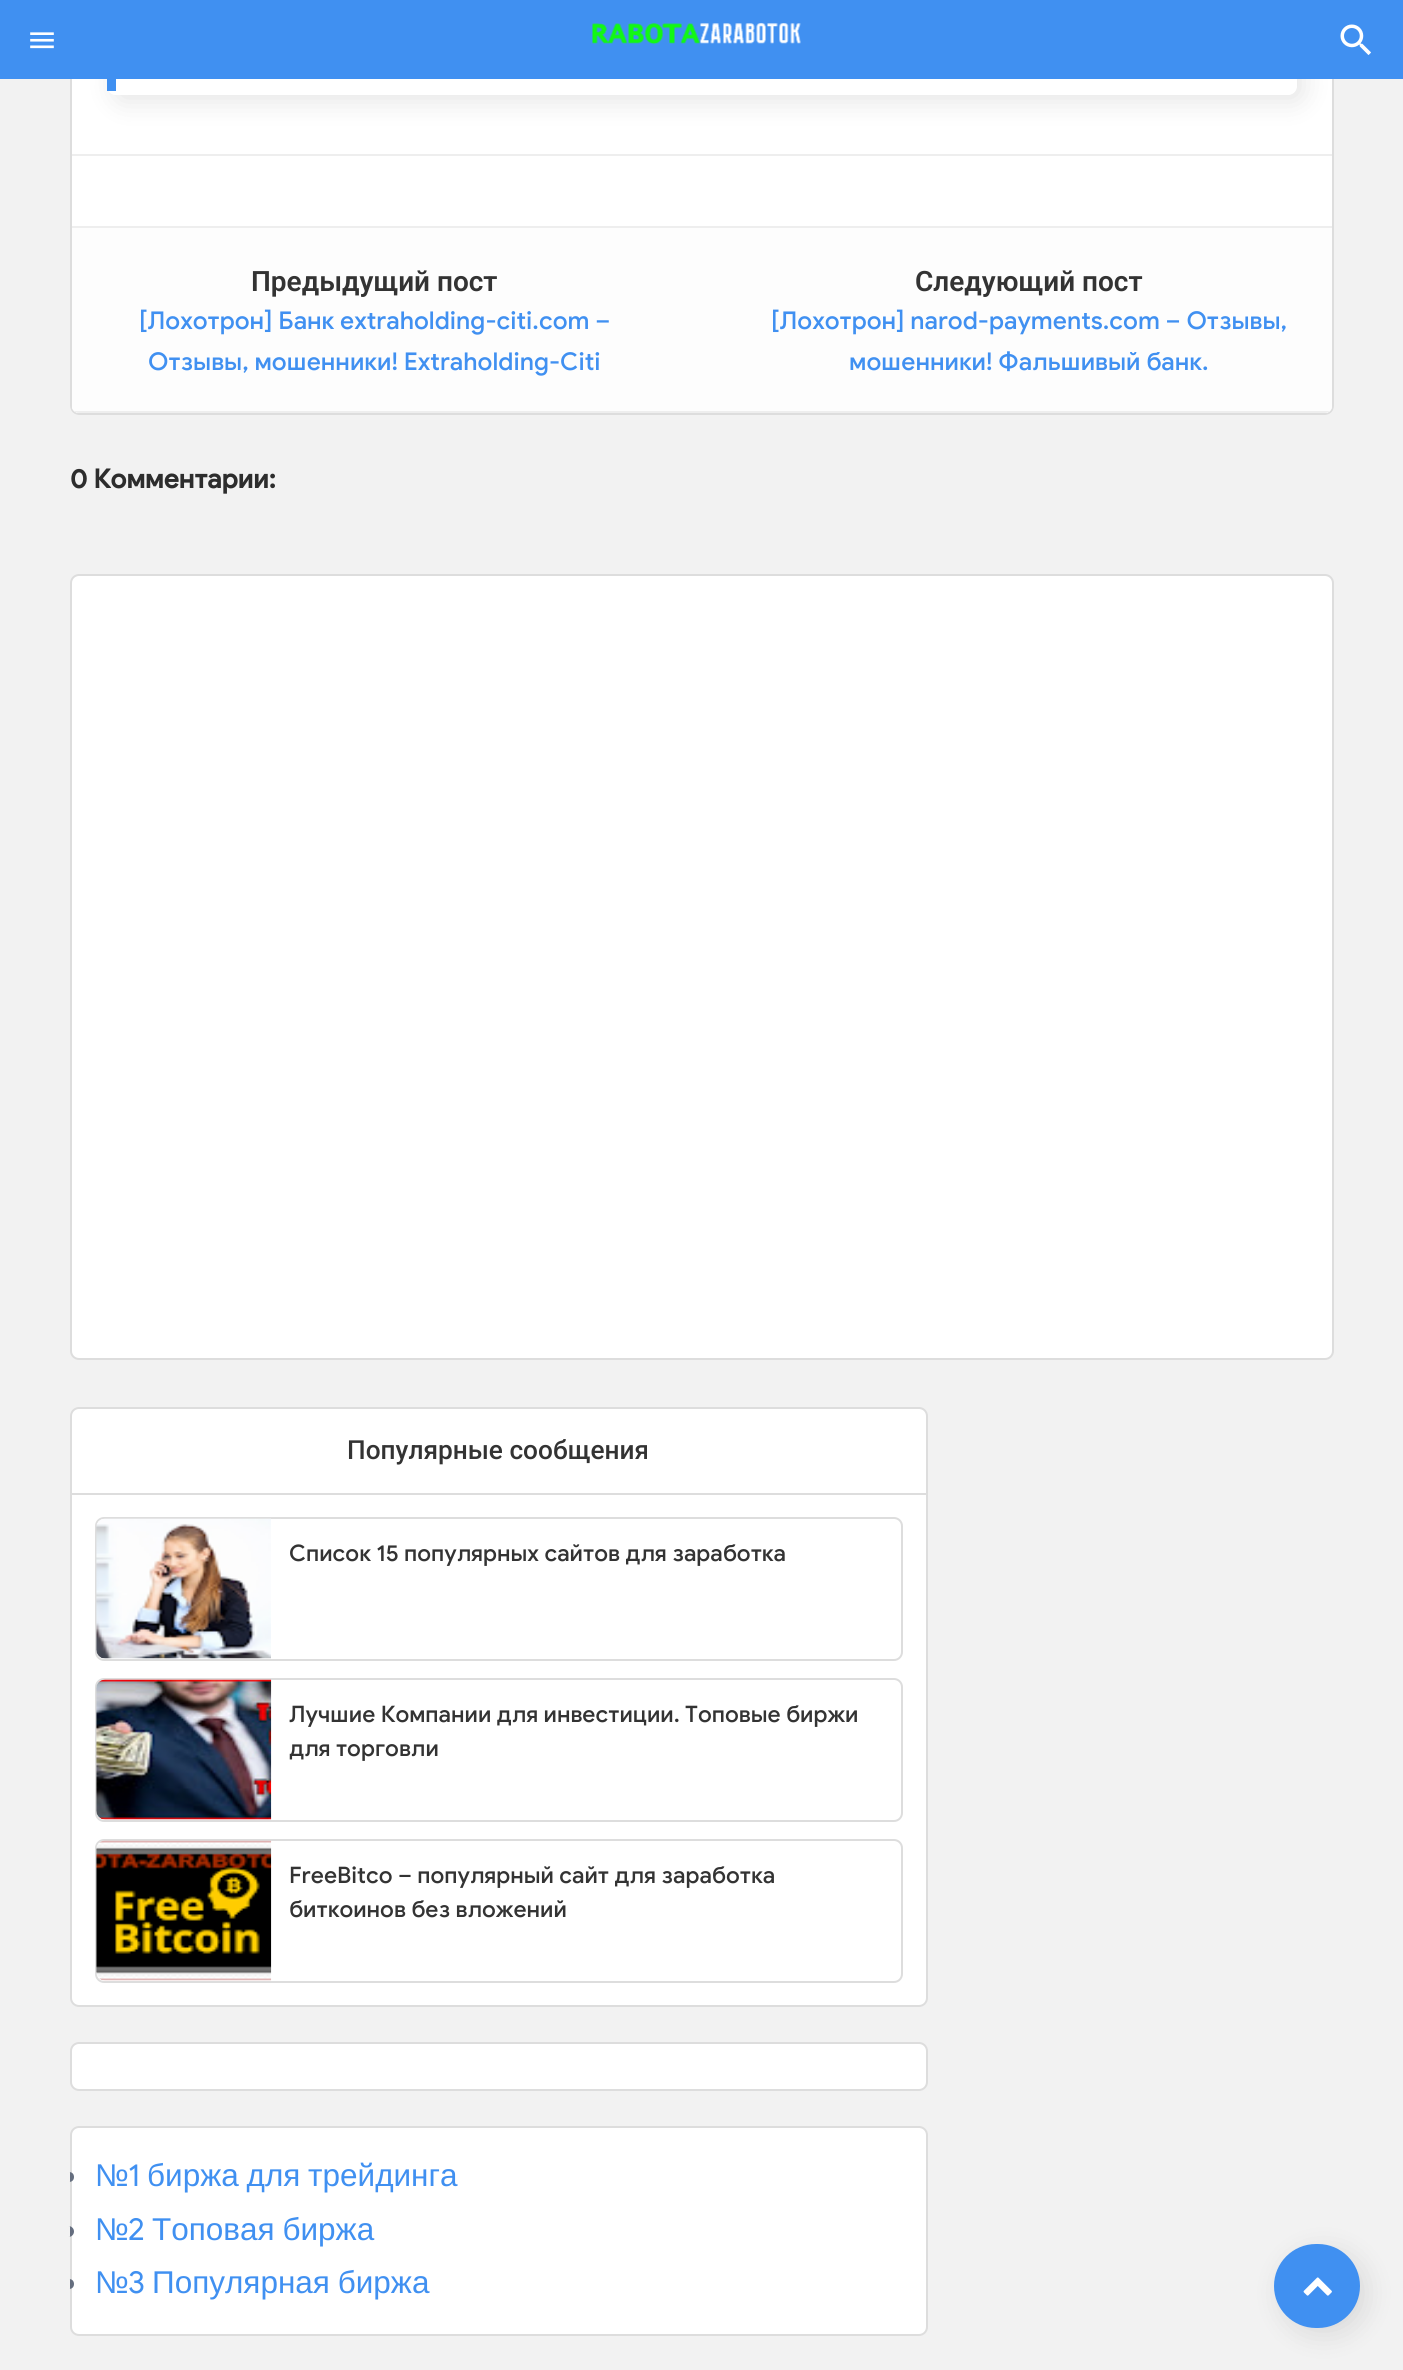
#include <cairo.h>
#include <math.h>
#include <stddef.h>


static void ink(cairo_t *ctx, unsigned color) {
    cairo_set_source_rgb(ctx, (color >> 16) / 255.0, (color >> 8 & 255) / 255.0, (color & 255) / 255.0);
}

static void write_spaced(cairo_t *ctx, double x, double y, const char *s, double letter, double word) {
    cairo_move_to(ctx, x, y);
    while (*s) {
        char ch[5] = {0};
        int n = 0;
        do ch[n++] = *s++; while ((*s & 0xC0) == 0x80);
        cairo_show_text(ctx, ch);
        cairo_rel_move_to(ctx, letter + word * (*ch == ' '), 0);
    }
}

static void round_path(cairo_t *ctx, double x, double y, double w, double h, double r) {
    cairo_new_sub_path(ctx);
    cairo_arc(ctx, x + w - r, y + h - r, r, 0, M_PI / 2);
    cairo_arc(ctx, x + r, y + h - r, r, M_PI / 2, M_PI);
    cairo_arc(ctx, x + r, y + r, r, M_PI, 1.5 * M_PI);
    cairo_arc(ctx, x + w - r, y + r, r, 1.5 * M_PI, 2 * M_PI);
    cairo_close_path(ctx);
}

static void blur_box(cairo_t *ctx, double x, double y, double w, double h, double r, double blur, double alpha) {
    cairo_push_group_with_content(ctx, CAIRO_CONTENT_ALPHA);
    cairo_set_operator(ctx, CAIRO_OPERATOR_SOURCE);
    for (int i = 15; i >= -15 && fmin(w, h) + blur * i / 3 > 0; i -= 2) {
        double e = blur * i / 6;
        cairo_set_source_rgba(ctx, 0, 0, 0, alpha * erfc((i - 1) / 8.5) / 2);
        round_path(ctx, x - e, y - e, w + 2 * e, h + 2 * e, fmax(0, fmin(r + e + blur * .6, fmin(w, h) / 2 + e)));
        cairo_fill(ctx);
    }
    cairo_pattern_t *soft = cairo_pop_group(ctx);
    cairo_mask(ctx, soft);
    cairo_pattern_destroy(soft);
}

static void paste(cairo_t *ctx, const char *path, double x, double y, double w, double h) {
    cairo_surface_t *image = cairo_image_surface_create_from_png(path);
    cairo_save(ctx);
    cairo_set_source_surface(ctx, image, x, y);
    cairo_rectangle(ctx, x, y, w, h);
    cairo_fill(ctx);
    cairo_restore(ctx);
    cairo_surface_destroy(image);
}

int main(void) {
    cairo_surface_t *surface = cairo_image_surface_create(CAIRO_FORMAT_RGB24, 1403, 2370);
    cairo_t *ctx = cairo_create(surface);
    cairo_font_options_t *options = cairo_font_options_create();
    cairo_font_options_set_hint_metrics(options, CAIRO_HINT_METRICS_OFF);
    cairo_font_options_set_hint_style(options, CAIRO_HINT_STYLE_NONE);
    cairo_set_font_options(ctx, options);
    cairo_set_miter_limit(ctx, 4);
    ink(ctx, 0xF2F2F2);
    cairo_paint(ctx);
    ink(ctx, 0xFFFFFF);
    round_path(ctx, 70, -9, 1264, 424, 9);
    cairo_fill(ctx);
    ink(ctx, 0xDDDDDD);
    cairo_set_fill_rule(ctx, CAIRO_FILL_RULE_EVEN_ODD);
    cairo_new_path(ctx);
    cairo_move_to(ctx, 79, -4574);
    cairo_line_to(ctx, 1325, -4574);
    cairo_curve_to(ctx, 1330, -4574, 1334, -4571, 1334, -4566);
    cairo_line_to(ctx, 1334, 406);
    cairo_curve_to(ctx, 1334, 411, 1330, 415, 1325, 415);
    cairo_line_to(ctx, 79, 415);
    cairo_curve_to(ctx, 74, 415, 70, 411, 70, 406);
    cairo_line_to(ctx, 70, -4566);
    cairo_curve_to(ctx, 70, -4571, 74, -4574, 79, -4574);
    cairo_close_path(ctx);
    cairo_move_to(ctx, 79, -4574);
    cairo_line_to(ctx, 1325, -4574);
    cairo_curve_to(ctx, 1329, -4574, 1332, -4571, 1332, -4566);
    cairo_line_to(ctx, 1332, 406);
    cairo_curve_to(ctx, 1332, 410, 1329, 413, 1325, 413);
    cairo_line_to(ctx, 79, 413);
    cairo_curve_to(ctx, 75, 413, 72, 410, 72, 406);
    cairo_line_to(ctx, 72, -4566);
    cairo_curve_to(ctx, 72, -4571, 75, -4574, 79, -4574);
    cairo_close_path(ctx);
    cairo_fill(ctx);
    cairo_save(ctx);
    cairo_new_path(ctx);
    cairo_move_to(ctx, 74, 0);
    cairo_line_to(ctx, 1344, 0);
    cairo_line_to(ctx, 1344, 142);
    cairo_line_to(ctx, 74, 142);
    cairo_close_path(ctx);
    cairo_move_to(ctx, 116, -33);
    cairo_line_to(ctx, 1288, -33);
    cairo_curve_to(ctx, 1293, -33, 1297, -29, 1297, -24);
    cairo_line_to(ctx, 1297, 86);
    cairo_curve_to(ctx, 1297, 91, 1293, 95, 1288, 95);
    cairo_line_to(ctx, 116, 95);
    cairo_curve_to(ctx, 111, 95, 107, 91, 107, 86);
    cairo_line_to(ctx, 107, -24);
    cairo_curve_to(ctx, 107, -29, 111, -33, 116, -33);
    cairo_close_path(ctx);
    cairo_clip(ctx);
    ink(ctx, 0x000000);
    blur_box(ctx, 114, -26, 1190, 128, 9, 13, 0.1);
    cairo_restore(ctx);
    ink(ctx, 0x4090F1);
    cairo_rectangle(ctx, 0, 0, 1403, 79);
    cairo_fill(ctx);
    paste(ctx, "media/1.png", 30, 32, 24, 17);
    paste(ctx, "media/2.png", 592, 23, 209, 22);
    paste(ctx, "media/3.png", 1340, 24, 31, 31);
    cairo_rectangle(ctx, 107, 79, 9, 12);
    cairo_fill(ctx);
    ink(ctx, 0xEEEEEE);
    cairo_rectangle(ctx, 72, 154, 1260, 2);
    cairo_fill(ctx);
    ink(ctx, 0xFDFDFD);
    cairo_set_fill_rule(ctx, CAIRO_FILL_RULE_WINDING);
    cairo_new_path(ctx);
    cairo_move_to(ctx, 72, 226);
    cairo_line_to(ctx, 72, 408);
    cairo_curve_to(ctx, 73, 411, 76, 413, 79, 413);
    cairo_line_to(ctx, 1325, 413);
    cairo_curve_to(ctx, 1329, 413, 1332, 410, 1332, 406);
    cairo_line_to(ctx, 1332, 226);
    cairo_close_path(ctx);
    cairo_fill(ctx);
    ink(ctx, 0xEEEEEE);
    cairo_rectangle(ctx, 72, 226, 1260, 2);
    cairo_fill(ctx);
    cairo_new_path(ctx);
    cairo_move_to(ctx, 79, 413);
    cairo_line_to(ctx, 1325, 413);
    cairo_curve_to(ctx, 1327, 413, 1328, 412, 1330, 411);
    cairo_line_to(ctx, 74, 411);
    cairo_curve_to(ctx, 75, 412, 77, 413, 79, 413);
    cairo_close_path(ctx);
    cairo_fill(ctx);
    cairo_select_font_face(ctx, "Roboto SemiBold", CAIRO_FONT_SLANT_NORMAL, CAIRO_FONT_WEIGHT_NORMAL);
    cairo_set_font_size(ctx, 28);
    ink(ctx, 0x333333);
    cairo_move_to(ctx, 251, 291);
    cairo_show_text(ctx, "Предыдущий пост");
    cairo_select_font_face(ctx, "Google Sans Medium", CAIRO_FONT_SLANT_NORMAL, CAIRO_FONT_WEIGHT_NORMAL);
    cairo_set_font_size(ctx, 24.5);
    ink(ctx, 0x4090F1);
    cairo_move_to(ctx, 139, 329);
    cairo_show_text(ctx, "[Лохотрон] Банк extraholding-citi.com –");
    cairo_move_to(ctx, 148, 370);
    cairo_show_text(ctx, "Отзывы, мошенники! Extraholding-Citi");
    cairo_select_font_face(ctx, "Roboto SemiBold", CAIRO_FONT_SLANT_NORMAL, CAIRO_FONT_WEIGHT_NORMAL);
    cairo_set_font_size(ctx, 28);
    ink(ctx, 0x333333);
    cairo_move_to(ctx, 915, 291);
    cairo_show_text(ctx, "Следующий пост");
    cairo_select_font_face(ctx, "Google Sans Medium", CAIRO_FONT_SLANT_NORMAL, CAIRO_FONT_WEIGHT_NORMAL);
    cairo_set_font_size(ctx, 24.5);
    ink(ctx, 0x4090F1);
    cairo_move_to(ctx, 771, 329);
    cairo_show_text(ctx, "[Лохотрон] narod-payments.com – Отзывы,");
    cairo_move_to(ctx, 849, 370);
    cairo_show_text(ctx, "мошенники! Фальшивый банк.");
    cairo_select_font_face(ctx, "Google Sans", CAIRO_FONT_SLANT_NORMAL, CAIRO_FONT_WEIGHT_BOLD);
    cairo_set_font_size(ctx, 26.25);
    ink(ctx, 0x2D2D2D);
    cairo_move_to(ctx, 70, 488);
    cairo_show_text(ctx, "0 Комментарии:");
    ink(ctx, 0xFFFFFF);
    round_path(ctx, 71, 575, 1262, 784, 8);
    cairo_fill_preserve(ctx);
    ink(ctx, 0xDDDDDD);
    cairo_stroke(ctx);
    ink(ctx, 0xFFFFFF);
    round_path(ctx, 71, 1408, 856, 598, 8);
    cairo_fill_preserve(ctx);
    ink(ctx, 0xDDDDDD);
    cairo_stroke(ctx);
    cairo_rectangle(ctx, 72, 1493, 854, 2);
    cairo_fill(ctx);
    cairo_select_font_face(ctx, "Roboto Medium", CAIRO_FONT_SLANT_NORMAL, CAIRO_FONT_WEIGHT_NORMAL);
    ink(ctx, 0x333333);
    cairo_move_to(ctx, 347, 1459);
    cairo_show_text(ctx, "Популярные сообщения");
    round_path(ctx, 96, 1518, 806, 142, 8);
    ink(ctx, 0xDDDDDD);
    cairo_stroke(ctx);
    paste(ctx, "media/4.png", 96, 1518, 175, 141);
    cairo_select_font_face(ctx, "Google Sans Medium", CAIRO_FONT_SLANT_NORMAL, CAIRO_FONT_WEIGHT_NORMAL);
    cairo_set_font_size(ctx, 22.75);
    ink(ctx, 0x333333);
    cairo_move_to(ctx, 289, 1561);
    cairo_show_text(ctx, "Список 15 популярных сайтов для заработка");
    round_path(ctx, 96, 1679, 806, 142, 8);
    ink(ctx, 0xDDDDDD);
    cairo_stroke(ctx);
    paste(ctx, "media/5.png", 96, 1679, 176, 141);
    ink(ctx, 0x333333);
    cairo_move_to(ctx, 289, 1722);
    cairo_show_text(ctx, "Лучшие Компании для инвестиции. Топовые биржи");
    cairo_move_to(ctx, 289, 1756);
    cairo_show_text(ctx, "для торговли");
    round_path(ctx, 96, 1840, 806, 142, 8);
    ink(ctx, 0xDDDDDD);
    cairo_stroke(ctx);
    paste(ctx, "media/6.png", 96, 1840, 176, 141);
    ink(ctx, 0x333333);
    cairo_move_to(ctx, 289, 1883);
    cairo_show_text(ctx, "FreeBitco – популярный сайт для заработка");
    cairo_move_to(ctx, 289, 1917);
    cairo_show_text(ctx, "биткоинов без вложений");
    ink(ctx, 0xFFFFFF);
    round_path(ctx, 71, 2043, 856, 47, 8);
    cairo_fill_preserve(ctx);
    ink(ctx, 0xDDDDDD);
    cairo_stroke(ctx);
    ink(ctx, 0xFFFFFF);
    round_path(ctx, 71, 2127, 856, 208, 8);
    cairo_fill_preserve(ctx);
    ink(ctx, 0xDDDDDD);
    cairo_stroke(ctx);
    ink(ctx, 0x656E7F);
    cairo_new_path(ctx);
    cairo_move_to(ctx, 70, 2172);
    cairo_line_to(ctx, 69, 2172);
    cairo_curve_to(ctx, 72, 2172, 74, 2174, 74, 2177);
    cairo_curve_to(ctx, 74, 2180, 72, 2182, 69, 2182);
    cairo_line_to(ctx, 70, 2182);
    cairo_close_path(ctx);
    cairo_fill(ctx);
    cairo_select_font_face(ctx, "Liberation Sans", CAIRO_FONT_SLANT_NORMAL, CAIRO_FONT_WEIGHT_NORMAL);
    cairo_set_font_size(ctx, 31.5);
    ink(ctx, 0x4090F1);
    cairo_move_to(ctx, 95, 2186);
    cairo_show_text(ctx, "№");
    cairo_select_font_face(ctx, "Google Sans", CAIRO_FONT_SLANT_NORMAL, CAIRO_FONT_WEIGHT_NORMAL);
    cairo_move_to(ctx, 128, 2186);
    cairo_show_text(ctx, "1");
    cairo_select_font_face(ctx, "Liberation Sans", CAIRO_FONT_SLANT_NORMAL, CAIRO_FONT_WEIGHT_NORMAL);
    write_spaced(ctx, 147, 2186, "биржа для трейдинга", 0, -1);
    ink(ctx, 0x656E7F);
    cairo_new_path(ctx);
    cairo_move_to(ctx, 70, 2226);
    cairo_line_to(ctx, 68.5, 2226);
    cairo_curve_to(ctx, 71.5, 2226, 74, 2228.5, 74, 2231.5);
    cairo_curve_to(ctx, 74, 2234.5, 71.5, 2237, 68.5, 2237);
    cairo_line_to(ctx, 70, 2237);
    cairo_close_path(ctx);
    cairo_fill(ctx);
    ink(ctx, 0x4090F1);
    cairo_move_to(ctx, 95, 2240);
    cairo_show_text(ctx, "№");
    cairo_select_font_face(ctx, "Google Sans", CAIRO_FONT_SLANT_NORMAL, CAIRO_FONT_WEIGHT_NORMAL);
    cairo_move_to(ctx, 128, 2240);
    cairo_show_text(ctx, "2");
    cairo_select_font_face(ctx, "Liberation Sans", CAIRO_FONT_SLANT_NORMAL, CAIRO_FONT_WEIGHT_NORMAL);
    write_spaced(ctx, 152, 2240, "Топовая биржа", 0, -1);
    ink(ctx, 0x656E7F);
    cairo_new_path(ctx);
    cairo_move_to(ctx, 70, 2279);
    cairo_line_to(ctx, 69, 2279);
    cairo_curve_to(ctx, 72, 2279, 74, 2281, 74, 2284);
    cairo_curve_to(ctx, 74, 2287, 72, 2289, 69, 2289);
    cairo_line_to(ctx, 70, 2289);
    cairo_close_path(ctx);
    cairo_fill(ctx);
    ink(ctx, 0x4090F1);
    cairo_move_to(ctx, 95, 2293);
    cairo_show_text(ctx, "№");
    cairo_select_font_face(ctx, "Google Sans", CAIRO_FONT_SLANT_NORMAL, CAIRO_FONT_WEIGHT_NORMAL);
    cairo_move_to(ctx, 128, 2293);
    cairo_show_text(ctx, "3");
    cairo_select_font_face(ctx, "Liberation Sans", CAIRO_FONT_SLANT_NORMAL, CAIRO_FONT_WEIGHT_NORMAL);
    write_spaced(ctx, 152, 2293, "Популярная биржа", 0, -1);
    ink(ctx, 0x000000);
    blur_box(ctx, 1281, 2251, 86, 84, 42, 13, 0.1);
    ink(ctx, 0x4090F1);
    round_path(ctx, 1275, 2245, 84, 82, 41);
    cairo_fill_preserve(ctx);
    cairo_stroke(ctx);
    paste(ctx, "media/7.png", 1303, 2277, 29, 19);
    cairo_surface_write_to_png(surface, "image.png");
    cairo_font_options_destroy(options);
    cairo_destroy(ctx);
    cairo_surface_destroy(surface);
    return 0;
}
